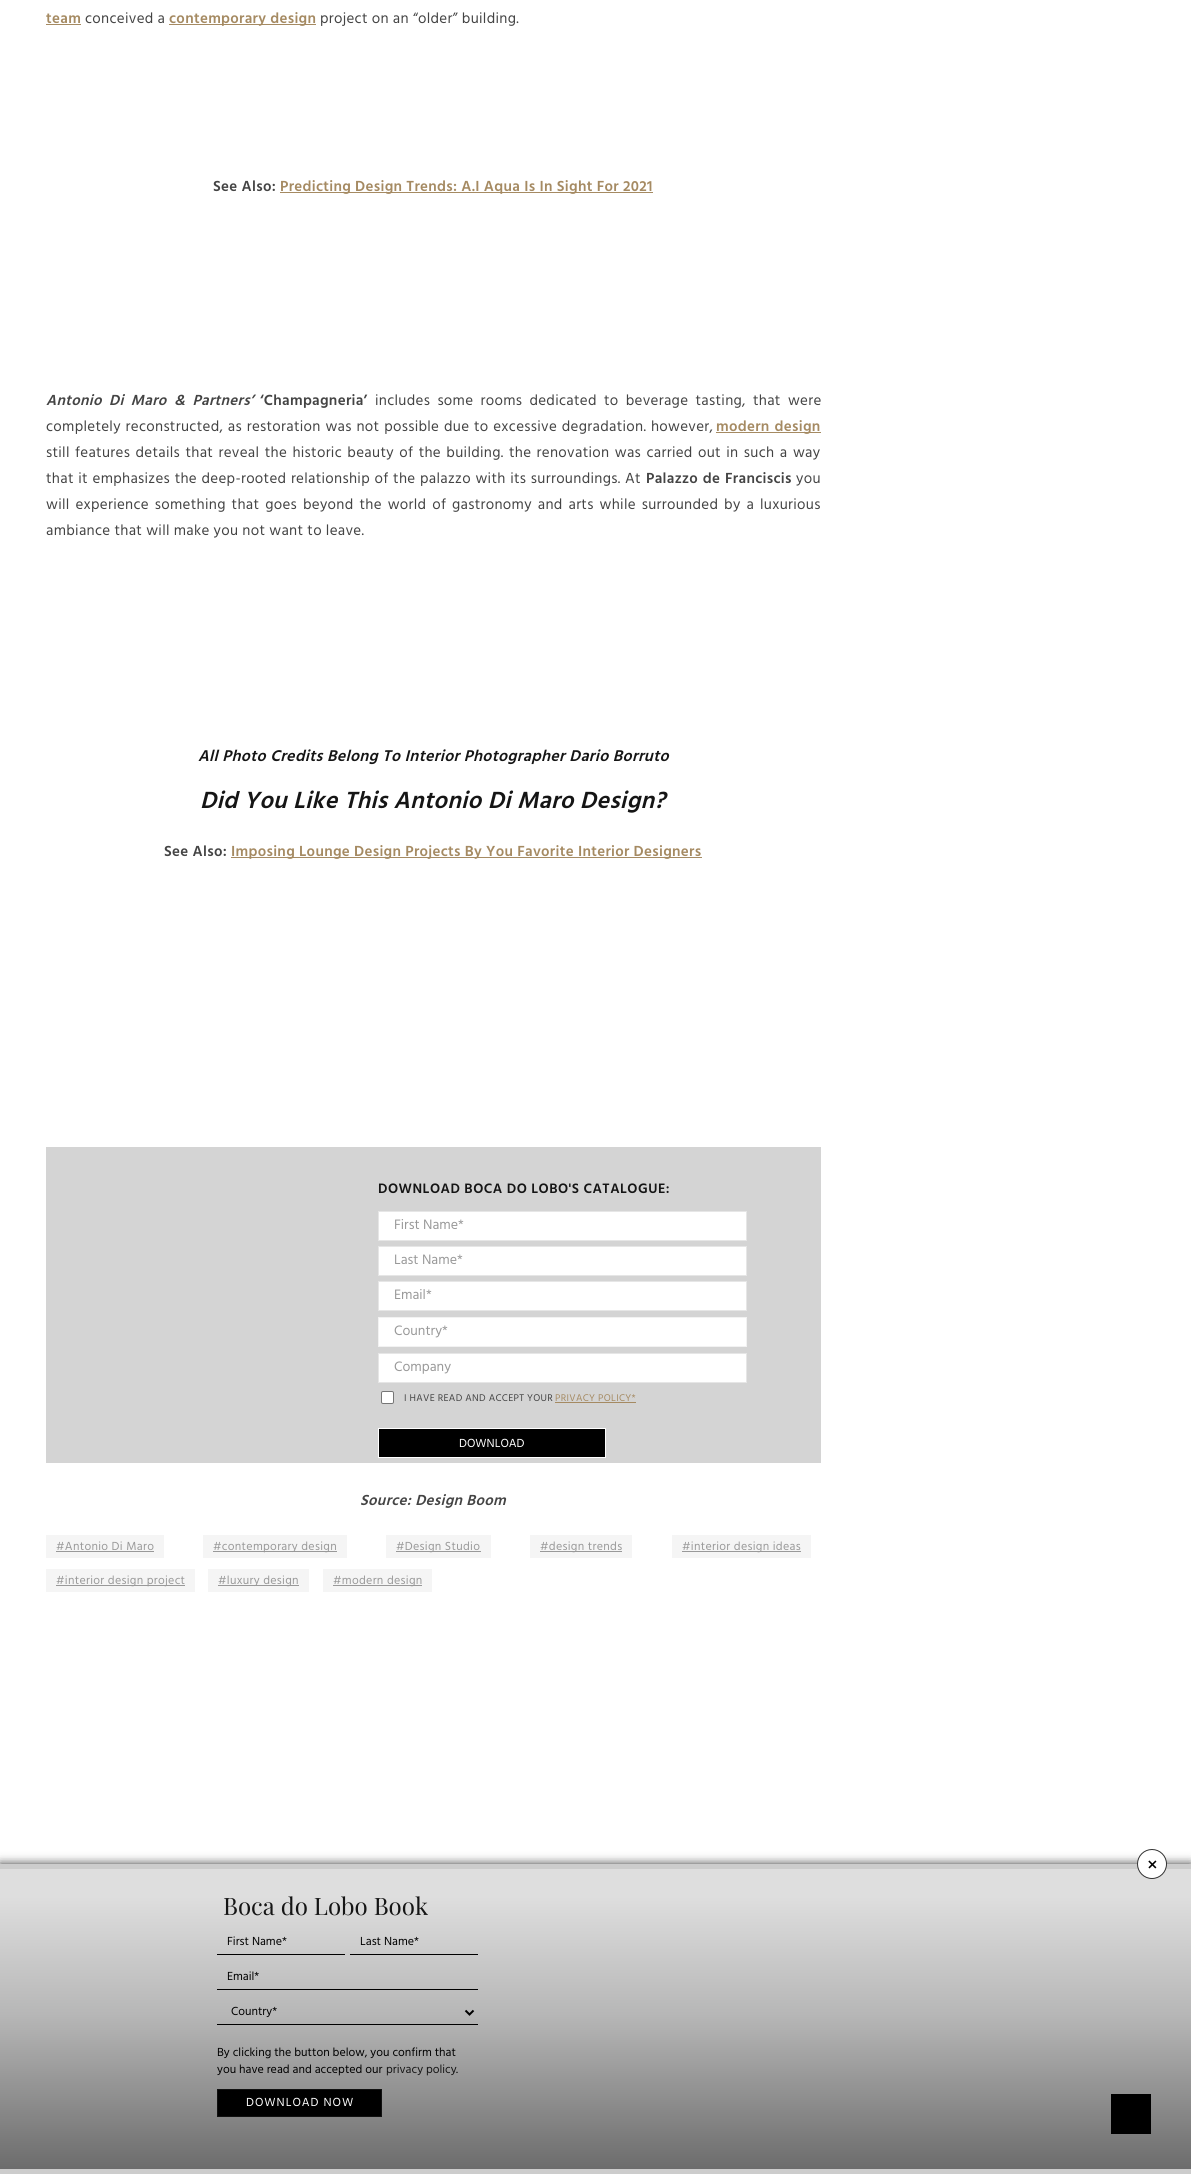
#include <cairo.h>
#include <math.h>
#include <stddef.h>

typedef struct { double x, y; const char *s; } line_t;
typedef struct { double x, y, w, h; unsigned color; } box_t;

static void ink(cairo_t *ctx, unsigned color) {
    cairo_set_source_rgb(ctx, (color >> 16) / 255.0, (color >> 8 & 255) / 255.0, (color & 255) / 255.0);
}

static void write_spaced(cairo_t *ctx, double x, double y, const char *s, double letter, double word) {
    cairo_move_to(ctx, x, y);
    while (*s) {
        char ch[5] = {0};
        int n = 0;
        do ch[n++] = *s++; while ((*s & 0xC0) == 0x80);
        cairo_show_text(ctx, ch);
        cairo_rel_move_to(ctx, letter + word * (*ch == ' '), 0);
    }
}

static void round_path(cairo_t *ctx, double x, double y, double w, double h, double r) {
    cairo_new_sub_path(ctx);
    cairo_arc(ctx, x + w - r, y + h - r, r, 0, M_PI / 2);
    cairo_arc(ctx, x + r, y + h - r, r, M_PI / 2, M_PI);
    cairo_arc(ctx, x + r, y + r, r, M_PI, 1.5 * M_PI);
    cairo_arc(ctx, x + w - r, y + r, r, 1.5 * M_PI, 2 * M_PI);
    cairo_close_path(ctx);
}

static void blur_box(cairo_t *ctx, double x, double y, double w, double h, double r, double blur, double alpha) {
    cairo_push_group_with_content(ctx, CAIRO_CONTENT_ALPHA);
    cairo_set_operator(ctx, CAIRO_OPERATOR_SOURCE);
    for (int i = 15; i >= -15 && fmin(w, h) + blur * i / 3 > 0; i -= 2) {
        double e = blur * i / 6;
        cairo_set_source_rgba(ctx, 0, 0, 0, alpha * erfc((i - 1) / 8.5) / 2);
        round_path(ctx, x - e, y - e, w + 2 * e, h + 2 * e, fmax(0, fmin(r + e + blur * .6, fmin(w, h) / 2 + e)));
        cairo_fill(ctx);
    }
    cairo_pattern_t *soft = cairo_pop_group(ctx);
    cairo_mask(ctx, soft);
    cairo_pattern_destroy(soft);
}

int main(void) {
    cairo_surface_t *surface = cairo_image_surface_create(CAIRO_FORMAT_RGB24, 1191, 2174);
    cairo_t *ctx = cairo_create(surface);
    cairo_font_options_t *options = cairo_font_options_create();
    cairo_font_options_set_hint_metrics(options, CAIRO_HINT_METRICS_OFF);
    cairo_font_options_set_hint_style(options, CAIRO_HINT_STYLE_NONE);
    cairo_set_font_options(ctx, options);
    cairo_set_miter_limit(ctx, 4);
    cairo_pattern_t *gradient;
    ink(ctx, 0xFFFFFF);
    cairo_paint(ctx);
    cairo_select_font_face(ctx, "Hind SemiBold", CAIRO_FONT_SLANT_NORMAL, CAIRO_FONT_WEIGHT_NORMAL);
    cairo_set_font_size(ctx, 15);
    ink(ctx, 0xA58A62);
    write_spaced(ctx, 46, 23, "team", 0.3, 0);
    cairo_rectangle(ctx, 46, 24, 35, 1);
    cairo_fill(ctx);
    cairo_select_font_face(ctx, "Hind", CAIRO_FONT_SLANT_NORMAL, CAIRO_FONT_WEIGHT_NORMAL);
    ink(ctx, 0x444444);
    write_spaced(ctx, 85, 23, "conceived a", 0.3, 0);
    ink(ctx, 0xA58A62);
    cairo_rectangle(ctx, 169, 24, 147, 1);
    cairo_fill(ctx);
    cairo_select_font_face(ctx, "Hind SemiBold", CAIRO_FONT_SLANT_NORMAL, CAIRO_FONT_WEIGHT_NORMAL);
    write_spaced(ctx, 169, 23, "contemporary design", 0.3, 0);
    cairo_select_font_face(ctx, "Hind", CAIRO_FONT_SLANT_NORMAL, CAIRO_FONT_WEIGHT_NORMAL);
    ink(ctx, 0x444444);
    write_spaced(ctx, 320, 23, "project on an “older” building.", 0.3, 0);
    cairo_select_font_face(ctx, "Hind SemiBold", CAIRO_FONT_SLANT_NORMAL, CAIRO_FONT_WEIGHT_NORMAL);
    write_spaced(ctx, 213, 191, "See Also:", 0.3, 0);
    ink(ctx, 0xA58A62);
    cairo_rectangle(ctx, 280, 192, 373, 1);
    cairo_fill(ctx);
    write_spaced(ctx, 280, 191, "Predicting Design Trends: A.I Aqua Is In Sight For 2021", 0.3, 0);
    cairo_select_font_face(ctx, "Hind SemiBold", CAIRO_FONT_SLANT_ITALIC, CAIRO_FONT_WEIGHT_NORMAL);
    ink(ctx, 0x444444);
    write_spaced(ctx, 46, 405, "Antonio Di Maro & Partners’", 0.3, 3.25);
    cairo_select_font_face(ctx, "Hind SemiBold", CAIRO_FONT_SLANT_NORMAL, CAIRO_FONT_WEIGHT_NORMAL);
    write_spaced(ctx, 260, 405, "‘Champagneria’", 0.3, 0);
    cairo_select_font_face(ctx, "Hind", CAIRO_FONT_SLANT_NORMAL, CAIRO_FONT_WEIGHT_NORMAL);
    write_spaced(ctx, 375, 405, "includes some rooms dedicated to beverage tasting, that were", 0.3, 3.25);
    write_spaced(ctx, 46, 431, "completely reconstructed, as restoration was not possible due to excessive degradation. however,", 0.3, 0.75);
    ink(ctx, 0xA58A62);
    cairo_rectangle(ctx, 716, 432, 105, 1);
    cairo_fill(ctx);
    cairo_select_font_face(ctx, "Hind SemiBold", CAIRO_FONT_SLANT_NORMAL, CAIRO_FONT_WEIGHT_NORMAL);
    write_spaced(ctx, 716, 431, "modern design", 0.3, 1);
    cairo_select_font_face(ctx, "Hind", CAIRO_FONT_SLANT_NORMAL, CAIRO_FONT_WEIGHT_NORMAL);
    ink(ctx, 0x444444);
    write_spaced(ctx, 46, 457, "still features details that reveal the historic beauty of the building. the renovation was carried out in such a way", 0.3, 1.4);
    write_spaced(ctx, 46, 483, "that it emphasizes the deep-rooted relationship of the palazzo with its surroundings. At", 0.3, 0.6);
    cairo_select_font_face(ctx, "Hind SemiBold", CAIRO_FONT_SLANT_NORMAL, CAIRO_FONT_WEIGHT_NORMAL);
    write_spaced(ctx, 646, 483, "Palazzo de Franciscis", 0.3, 0.75);
    cairo_select_font_face(ctx, "Hind", CAIRO_FONT_SLANT_NORMAL, CAIRO_FONT_WEIGHT_NORMAL);
    write_spaced(ctx, 796, 483, "you", 0.3, 0);
    write_spaced(ctx, 46, 509, "will experience something that goes beyond the world of gastronomy and arts while surrounded by a luxurious", 0.3, 1.9);
    write_spaced(ctx, 46, 535, "ambiance that will make you not want to leave.", 0.3, 0);
    cairo_select_font_face(ctx, "Hind SemiBold", CAIRO_FONT_SLANT_ITALIC, CAIRO_FONT_WEIGHT_NORMAL);
    cairo_set_font_size(ctx, 16);
    ink(ctx, 0x151515);
    write_spaced(ctx, 198, 761, "All Photo Credits Belong To Interior Photographer Dario Borruto", 0.3, 0);
    cairo_set_font_size(ctx, 24);
    write_spaced(ctx, 200, 808, "Did You Like This Antonio Di Maro Design?", 0.3, 0);
    cairo_select_font_face(ctx, "Hind SemiBold", CAIRO_FONT_SLANT_NORMAL, CAIRO_FONT_WEIGHT_NORMAL);
    cairo_set_font_size(ctx, 15);
    ink(ctx, 0x444444);
    write_spaced(ctx, 164, 856, "See Also:", 0.3, 0);
    ink(ctx, 0xA58A62);
    cairo_rectangle(ctx, 231, 857, 471, 1);
    cairo_fill(ctx);
    write_spaced(ctx, 231, 856, "Imposing Lounge Design Projects By You Favorite Interior Designers", 0.3, 0);
    ink(ctx, 0xD4D4D4);
    cairo_rectangle(ctx, 46, 1147, 775, 316);
    cairo_fill(ctx);
    cairo_set_font_size(ctx, 14);
    ink(ctx, 0x151515);
    write_spaced(ctx, 378, 1193, "DOWNLOAD BOCA DO LOBO'S CATALOGUE:", 0.5, 0);
    ink(ctx, 0xFFFFFF);
    cairo_rectangle(ctx, 378.5, 1211.5, 368, 29);
    cairo_fill_preserve(ctx);
    ink(ctx, 0xE6E6E6);
    cairo_set_line_width(ctx, 1);
    cairo_stroke(ctx);
    cairo_select_font_face(ctx, "Hind", CAIRO_FONT_SLANT_NORMAL, CAIRO_FONT_WEIGHT_NORMAL);
    ink(ctx, 0x999999);
    cairo_move_to(ctx, 394, 1229);
    cairo_show_text(ctx, "First Name*");
    ink(ctx, 0xFFFFFF);
    cairo_rectangle(ctx, 378.5, 1246.5, 368, 29);
    cairo_fill_preserve(ctx);
    ink(ctx, 0xE6E6E6);
    cairo_stroke(ctx);
    ink(ctx, 0x999999);
    cairo_move_to(ctx, 394, 1264);
    cairo_show_text(ctx, "Last Name*");
    ink(ctx, 0xFFFFFF);
    cairo_rectangle(ctx, 378.5, 1281.5, 368, 29);
    cairo_fill_preserve(ctx);
    ink(ctx, 0xE6E6E6);
    cairo_stroke(ctx);
    ink(ctx, 0x999999);
    cairo_move_to(ctx, 394, 1299);
    cairo_show_text(ctx, "Email*");
    ink(ctx, 0xFFFFFF);
    cairo_rectangle(ctx, 378.5, 1317.5, 368, 29);
    cairo_fill_preserve(ctx);
    ink(ctx, 0xF2F2F2);
    cairo_stroke(ctx);
    ink(ctx, 0x999999);
    cairo_move_to(ctx, 394, 1335);
    cairo_show_text(ctx, "Country*");
    ink(ctx, 0xFFFFFF);
    cairo_rectangle(ctx, 378.5, 1353.5, 368, 29);
    cairo_fill_preserve(ctx);
    ink(ctx, 0xE6E6E6);
    cairo_stroke(ctx);
    ink(ctx, 0x999999);
    cairo_move_to(ctx, 394, 1371);
    cairo_show_text(ctx, "Company");
    ink(ctx, 0xFFFFFF);
    round_path(ctx, 381.5, 1391.5, 12, 12, 1.5);
    cairo_fill_preserve(ctx);
    ink(ctx, 0x767676);
    cairo_stroke(ctx);
    cairo_set_font_size(ctx, 10);
    ink(ctx, 0x444444);
    write_spaced(ctx, 404, 1401, "I HAVE READ AND ACCEPT YOUR", 0.3, 0);
    ink(ctx, 0xA58A62);
    write_spaced(ctx, 555, 1401, "PRIVACY POLICY*", 0.3, 0);
    cairo_rectangle(ctx, 555, 1402, 81, 1);
    cairo_fill(ctx);
    ink(ctx, 0x000000);
    cairo_rectangle(ctx, 378.5, 1428.5, 227, 29);
    cairo_fill_preserve(ctx);
    ink(ctx, 0xFFFFFF);
    cairo_stroke(ctx);
    cairo_set_font_size(ctx, 12);
    cairo_move_to(ctx, 459, 1447);
    cairo_show_text(ctx, "DOWNLOAD");
    cairo_select_font_face(ctx, "Hind SemiBold", CAIRO_FONT_SLANT_ITALIC, CAIRO_FONT_WEIGHT_NORMAL);
    cairo_set_font_size(ctx, 15);
    ink(ctx, 0x444444);
    write_spaced(ctx, 360, 1505, "Source: Design Boom", 0.3, 0);
    ink(ctx, 0xF5F5F5);
    cairo_rectangle(ctx, 46, 1535, 118, 23);
    cairo_fill(ctx);
    cairo_select_font_face(ctx, "Hind", CAIRO_FONT_SLANT_NORMAL, CAIRO_FONT_WEIGHT_NORMAL);
    cairo_set_font_size(ctx, 12);
    ink(ctx, 0x999999);
    write_spaced(ctx, 56, 1550, "#Antonio Di Maro", 0.3, 0);
    {
        static const box_t items[] = {
            {56, 1551, 98, 1, 0x999999},
            {203, 1535, 144, 23, 0xF5F5F5},
            {213, 1551, 124, 1, 0x999999},
        };
        for (size_t i = 0; i < sizeof items / sizeof *items; i++) {
            ink(ctx, items[i].color);
            cairo_rectangle(ctx, items[i].x, items[i].y, items[i].w, items[i].h);
            cairo_fill(ctx);
        }
    }
    write_spaced(ctx, 213, 1550, "#contemporary design", 0.3, 0);
    ink(ctx, 0xF5F5F5);
    cairo_rectangle(ctx, 386, 1535, 105, 23);
    cairo_fill(ctx);
    ink(ctx, 0x999999);
    cairo_rectangle(ctx, 396, 1551, 85, 1);
    cairo_fill(ctx);
    write_spaced(ctx, 396, 1550, "#Design Studio", 0.3, 0);
    ink(ctx, 0xF5F5F5);
    cairo_rectangle(ctx, 530, 1535, 102, 23);
    cairo_fill(ctx);
    ink(ctx, 0x999999);
    cairo_rectangle(ctx, 540, 1551, 82, 1);
    cairo_fill(ctx);
    write_spaced(ctx, 540, 1550, "#design trends", 0.3, 0);
    ink(ctx, 0xF5F5F5);
    cairo_rectangle(ctx, 672, 1535, 139, 23);
    cairo_fill(ctx);
    ink(ctx, 0x999999);
    cairo_rectangle(ctx, 682, 1551, 119, 1);
    cairo_fill(ctx);
    write_spaced(ctx, 682, 1550, "#interior design ideas", 0.3, 0);
    ink(ctx, 0xF5F5F5);
    cairo_rectangle(ctx, 46, 1569, 149, 23);
    cairo_fill(ctx);
    ink(ctx, 0x999999);
    cairo_rectangle(ctx, 56, 1585, 129, 1);
    cairo_fill(ctx);
    write_spaced(ctx, 56, 1584, "#interior design project", 0.3, 0);
    ink(ctx, 0xF5F5F5);
    cairo_rectangle(ctx, 208, 1569, 101, 23);
    cairo_fill(ctx);
    ink(ctx, 0x999999);
    cairo_rectangle(ctx, 218, 1585, 81, 1);
    cairo_fill(ctx);
    write_spaced(ctx, 218, 1584, "#luxury design", 0.3, 0);
    ink(ctx, 0xF5F5F5);
    cairo_rectangle(ctx, 323, 1569, 109, 23);
    cairo_fill(ctx);
    ink(ctx, 0x999999);
    cairo_rectangle(ctx, 333, 1585, 89, 1);
    cairo_fill(ctx);
    write_spaced(ctx, 333, 1584, "#modern design", 0.3, 0);
    ink(ctx, 0x000000);
    blur_box(ctx, 0, 1864, 1191, 310, 0, 5, 0.8);
    ink(ctx, 0xCCCCCC);
    cairo_rectangle(ctx, 0, 1864, 1191, 310);
    cairo_fill(ctx);
    gradient = cairo_pattern_create_linear(596, 1869, 596, 2169);
    cairo_pattern_add_color_stop_rgba(gradient, 0, 0.871, 0.871, 0.871, 1);
    cairo_pattern_add_color_stop_rgba(gradient, 0.09, 0.871, 0.871, 0.871, 1);
    cairo_pattern_add_color_stop_rgba(gradient, 0.49, 0.714, 0.714, 0.714, 1);
    cairo_pattern_add_color_stop_rgba(gradient, 1, 0.424, 0.424, 0.424, 1);
    cairo_set_source(ctx, gradient);
    cairo_pattern_destroy(gradient);
    cairo_rectangle(ctx, 0, 1869, 1191, 300);
    cairo_fill(ctx);
    ink(ctx, 0xFFFFFF);
    cairo_arc(ctx, 1152, 1864, 14.5, 0, 2 * M_PI);
    cairo_fill_preserve(ctx);
    ink(ctx, 0x333333);
    cairo_stroke(ctx);
    cairo_set_font_size(ctx, 22);
    ink(ctx, 0x000000);
    cairo_move_to(ctx, 1147, 1872);
    cairo_show_text(ctx, "×");
    cairo_select_font_face(ctx, "Playfair Display", CAIRO_FONT_SLANT_NORMAL, CAIRO_FONT_WEIGHT_NORMAL);
    cairo_set_font_size(ctx, 24);
    ink(ctx, 0x151515);
    cairo_move_to(ctx, 223, 1915);
    cairo_show_text(ctx, "Boca do Lobo Book");
    ink(ctx, 0x000000);
    cairo_rectangle(ctx, 217, 1954, 128, 1);
    cairo_fill(ctx);
    cairo_select_font_face(ctx, "Hind", CAIRO_FONT_SLANT_NORMAL, CAIRO_FONT_WEIGHT_NORMAL);
    cairo_set_font_size(ctx, 12);
    cairo_move_to(ctx, 227, 1945);
    cairo_show_text(ctx, "First Name*");
    cairo_rectangle(ctx, 350, 1954, 128, 1);
    cairo_fill(ctx);
    cairo_move_to(ctx, 360, 1945);
    cairo_show_text(ctx, "Last Name*");
    cairo_rectangle(ctx, 217, 1989, 261, 1);
    cairo_fill(ctx);
    cairo_move_to(ctx, 227, 1980);
    cairo_show_text(ctx, "Email*");
    cairo_rectangle(ctx, 217, 2024, 261, 1);
    cairo_fill(ctx);
    cairo_new_path(ctx);
    cairo_move_to(ctx, 465.5, 2010.5);
    cairo_line_to(ctx, 469.5, 2014.5);
    cairo_line_to(ctx, 473.5, 2010.5);
    cairo_set_line_width(ctx, 2);
    cairo_stroke(ctx);
    {
        static const line_t items[] = {
            {231, 2015, "Country*"},
            {217, 2056, "By clicking the button below, you confirm that"},
            {217, 2073, "you have read and accepted our"},
        };
        for (size_t i = 0; i < sizeof items / sizeof *items; i++) {
            cairo_move_to(ctx, items[i].x, items[i].y);
            cairo_show_text(ctx, items[i].s);
        }
    }
    ink(ctx, 0x151515);
    cairo_move_to(ctx, 386, 2073);
    cairo_show_text(ctx, "privacy policy");
    ink(ctx, 0x000000);
    cairo_move_to(ctx, 456, 2073);
    cairo_show_text(ctx, ".");
    cairo_rectangle(ctx, 217.5, 2089.5, 164, 27);
    cairo_fill_preserve(ctx);
    ink(ctx, 0x111111);
    cairo_set_line_width(ctx, 1);
    cairo_stroke(ctx);
    ink(ctx, 0xFFFFFF);
    write_spaced(ctx, 246, 2106, "DOWNLOAD NOW", 1, 0);
    ink(ctx, 0x000000);
    cairo_rectangle(ctx, 1111, 2094, 40, 40);
    cairo_fill(ctx);
    cairo_surface_write_to_png(surface, "image.png");
    cairo_font_options_destroy(options);
    cairo_destroy(ctx);
    cairo_surface_destroy(surface);
    return 0;
}
